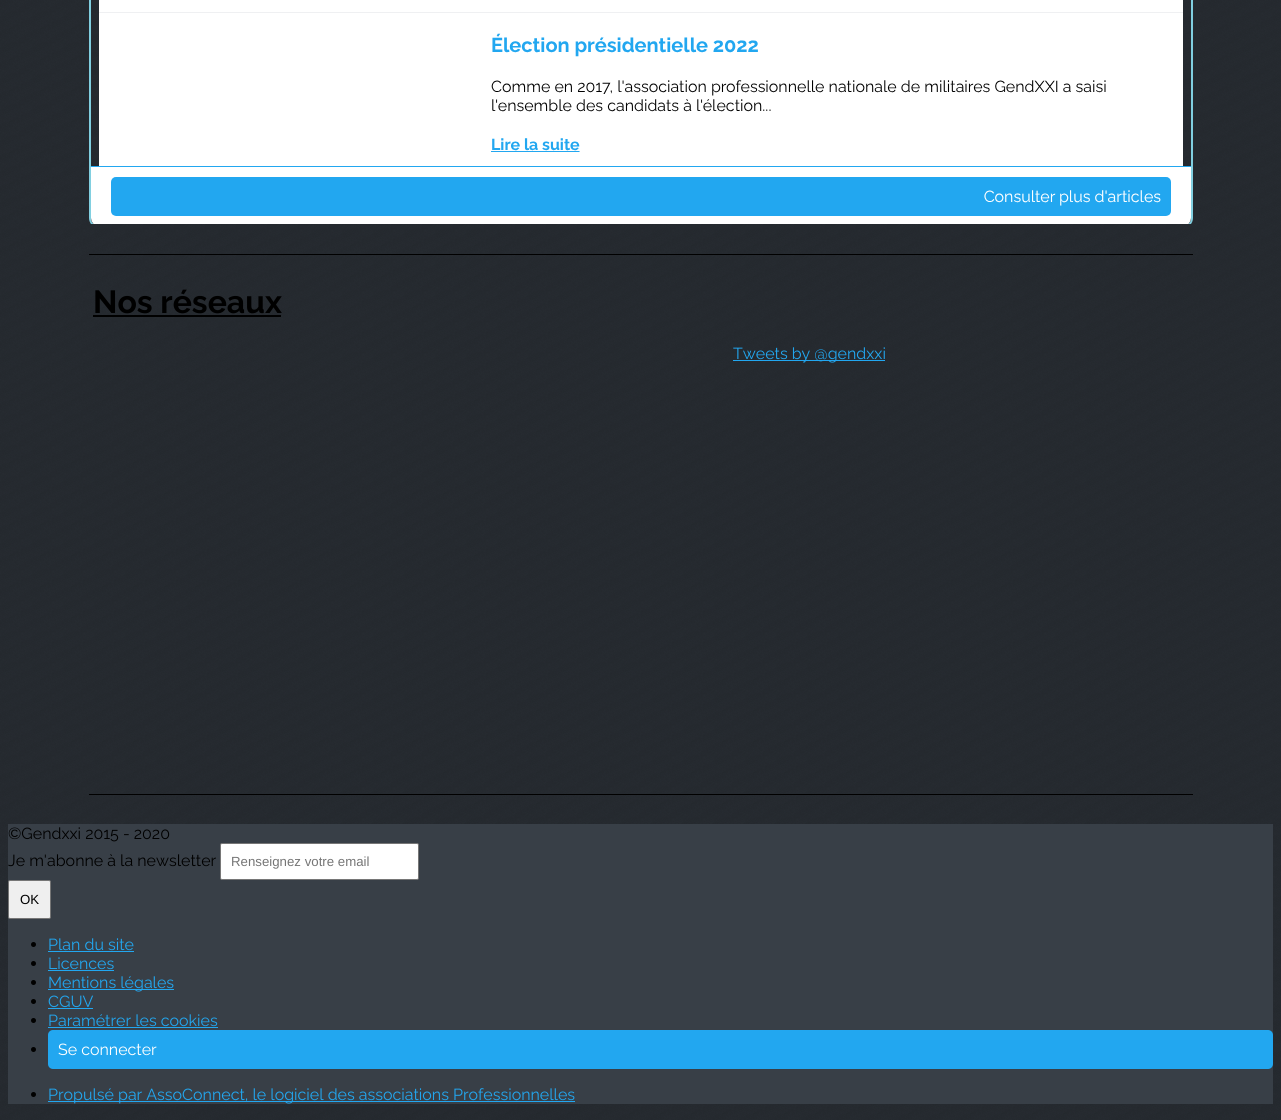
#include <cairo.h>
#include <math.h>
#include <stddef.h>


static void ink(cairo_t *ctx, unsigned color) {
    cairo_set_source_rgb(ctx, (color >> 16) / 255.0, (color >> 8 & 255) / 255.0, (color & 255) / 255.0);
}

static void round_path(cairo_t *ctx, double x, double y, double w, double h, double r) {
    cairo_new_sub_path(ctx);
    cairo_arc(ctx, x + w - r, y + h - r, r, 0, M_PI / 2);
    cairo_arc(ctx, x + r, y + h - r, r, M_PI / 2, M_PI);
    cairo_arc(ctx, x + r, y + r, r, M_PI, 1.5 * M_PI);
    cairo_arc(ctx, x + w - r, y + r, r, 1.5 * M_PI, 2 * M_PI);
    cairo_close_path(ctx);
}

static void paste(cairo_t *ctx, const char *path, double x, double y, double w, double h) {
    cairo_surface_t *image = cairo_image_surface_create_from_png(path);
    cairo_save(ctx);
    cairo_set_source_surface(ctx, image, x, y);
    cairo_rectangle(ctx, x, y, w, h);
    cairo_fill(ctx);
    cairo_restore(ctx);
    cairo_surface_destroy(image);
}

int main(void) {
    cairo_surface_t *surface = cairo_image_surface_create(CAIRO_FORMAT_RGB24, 1281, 1120);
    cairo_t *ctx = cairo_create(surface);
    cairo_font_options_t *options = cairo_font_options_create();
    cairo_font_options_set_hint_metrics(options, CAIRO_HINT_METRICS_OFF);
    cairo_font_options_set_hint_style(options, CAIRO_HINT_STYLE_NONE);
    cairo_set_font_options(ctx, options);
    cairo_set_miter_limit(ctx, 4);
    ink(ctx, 0x292E34);
    cairo_paint(ctx);
    paste(ctx, "media/1.png", 0, 0, 1281, 1120);
    cairo_save(ctx);
    cairo_rectangle(ctx, 89, 0, 1104, 224);
    cairo_clip(ctx);
    round_path(ctx, 90, -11, 1102, 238, 9);
    ink(ctx, 0x81CFE0);
    cairo_stroke(ctx);
    cairo_restore(ctx);
    paste(ctx, "media/2.png", 91, 0, 1100, 224);
    ink(ctx, 0x000000);
    cairo_rectangle(ctx, 89, 254, 1104, 1);
    cairo_fill(ctx);
    cairo_select_font_face(ctx, "Raleway", CAIRO_FONT_SLANT_NORMAL, CAIRO_FONT_WEIGHT_BOLD);
    cairo_set_font_size(ctx, 32);
    cairo_move_to(ctx, 93, 313);
    cairo_show_text(ctx, "Nos réseaux");
    cairo_rectangle(ctx, 93, 315, 188, 2);
    cairo_fill(ctx);
    ink(ctx, 0x22A7F0);
    cairo_rectangle(ctx, 733, 360, 152, 1);
    cairo_fill(ctx);
    cairo_select_font_face(ctx, "Raleway", CAIRO_FONT_SLANT_NORMAL, CAIRO_FONT_WEIGHT_NORMAL);
    cairo_set_font_size(ctx, 16);
    cairo_move_to(ctx, 733, 359);
    cairo_show_text(ctx, "Tweets by @gendxxi");
    ink(ctx, 0x000000);
    cairo_rectangle(ctx, 89, 794, 1104, 1);
    cairo_fill(ctx);
    ink(ctx, 0x383F47);
    cairo_rectangle(ctx, 8, 824, 1265, 280);
    cairo_fill(ctx);
    ink(ctx, 0x000000);
    cairo_move_to(ctx, 8, 839);
    cairo_show_text(ctx, "©Gendxxi 2015 - 2020");
    cairo_move_to(ctx, 8, 866);
    cairo_show_text(ctx, "Je m'abonne à la newsletter");
    ink(ctx, 0xFFFFFF);
    round_path(ctx, 220.5, 843.5, 198, 36, 1.5);
    cairo_fill_preserve(ctx);
    ink(ctx, 0x767676);
    cairo_set_line_width(ctx, 1);
    cairo_stroke(ctx);
    cairo_select_font_face(ctx, "Liberation Sans", CAIRO_FONT_SLANT_NORMAL, CAIRO_FONT_WEIGHT_NORMAL);
    cairo_set_font_size(ctx, 13.25);
    ink(ctx, 0x757575);
    cairo_move_to(ctx, 231, 866);
    cairo_show_text(ctx, "Renseignez votre email");
    ink(ctx, 0xEFEFEF);
    round_path(ctx, 8.5, 880.5, 42, 38, 1.5);
    cairo_fill_preserve(ctx);
    ink(ctx, 0x767676);
    cairo_stroke(ctx);
    ink(ctx, 0x000000);
    cairo_move_to(ctx, 20, 904);
    cairo_show_text(ctx, "OK");
    cairo_new_path(ctx);
    cairo_arc(ctx, 33.5, 944.5, 2.5, 0, 2 * M_PI);
    cairo_fill(ctx);
    cairo_select_font_face(ctx, "Raleway", CAIRO_FONT_SLANT_NORMAL, CAIRO_FONT_WEIGHT_NORMAL);
    cairo_set_font_size(ctx, 16);
    ink(ctx, 0x22A7F0);
    cairo_move_to(ctx, 48, 950);
    cairo_show_text(ctx, "Plan du site");
    cairo_rectangle(ctx, 48, 951, 86, 1);
    cairo_fill(ctx);
    ink(ctx, 0x000000);
    cairo_arc(ctx, 33.5, 963.5, 2.5, 0, 2 * M_PI);
    cairo_fill(ctx);
    ink(ctx, 0x22A7F0);
    cairo_move_to(ctx, 48, 969);
    cairo_show_text(ctx, "Licences");
    cairo_rectangle(ctx, 48, 970, 66, 1);
    cairo_fill(ctx);
    ink(ctx, 0x000000);
    cairo_arc(ctx, 33.5, 982.5, 2.5, 0, 2 * M_PI);
    cairo_fill(ctx);
    ink(ctx, 0x22A7F0);
    cairo_rectangle(ctx, 48, 989, 126, 1);
    cairo_fill(ctx);
    cairo_move_to(ctx, 48, 988);
    cairo_show_text(ctx, "Mentions légales");
    ink(ctx, 0x000000);
    cairo_new_path(ctx);
    cairo_arc(ctx, 33.5, 1001.5, 2.5, 0, 2 * M_PI);
    cairo_fill(ctx);
    ink(ctx, 0x22A7F0);
    cairo_move_to(ctx, 48, 1007);
    cairo_show_text(ctx, "CGUV");
    cairo_rectangle(ctx, 48, 1008, 45, 1);
    cairo_fill(ctx);
    ink(ctx, 0x000000);
    cairo_arc(ctx, 33.5, 1020.5, 2.5, 0, 2 * M_PI);
    cairo_fill(ctx);
    ink(ctx, 0x22A7F0);
    cairo_move_to(ctx, 48, 1026);
    cairo_show_text(ctx, "Paramétrer les cookies");
    cairo_rectangle(ctx, 48, 1027, 170, 1);
    cairo_fill(ctx);
    ink(ctx, 0x000000);
    cairo_arc(ctx, 33.5, 1049.5, 2.5, 0, 2 * M_PI);
    cairo_fill(ctx);
    ink(ctx, 0x22A7F0);
    round_path(ctx, 48, 1030, 1225, 39, 5);
    cairo_fill(ctx);
    ink(ctx, 0xFFFFFF);
    cairo_move_to(ctx, 58, 1055);
    cairo_show_text(ctx, "Se connecter");
    ink(ctx, 0x000000);
    cairo_new_path(ctx);
    cairo_arc(ctx, 33.5, 1094.5, 2.5, 0, 2 * M_PI);
    cairo_fill(ctx);
    ink(ctx, 0x22A7F0);
    cairo_rectangle(ctx, 48, 1101, 527, 1);
    cairo_fill(ctx);
    cairo_move_to(ctx, 48, 1100);
    cairo_show_text(ctx, "Propulsé par AssoConnect, le logiciel des associations Professionnelles");
    cairo_surface_write_to_png(surface, "image.png");
    cairo_font_options_destroy(options);
    cairo_destroy(ctx);
    cairo_surface_destroy(surface);
    return 0;
}
